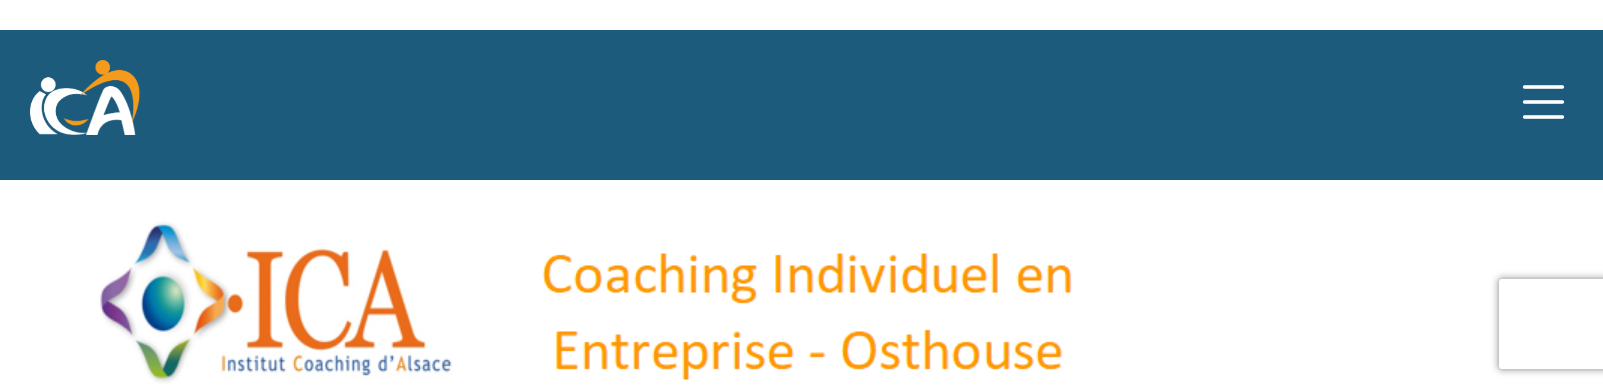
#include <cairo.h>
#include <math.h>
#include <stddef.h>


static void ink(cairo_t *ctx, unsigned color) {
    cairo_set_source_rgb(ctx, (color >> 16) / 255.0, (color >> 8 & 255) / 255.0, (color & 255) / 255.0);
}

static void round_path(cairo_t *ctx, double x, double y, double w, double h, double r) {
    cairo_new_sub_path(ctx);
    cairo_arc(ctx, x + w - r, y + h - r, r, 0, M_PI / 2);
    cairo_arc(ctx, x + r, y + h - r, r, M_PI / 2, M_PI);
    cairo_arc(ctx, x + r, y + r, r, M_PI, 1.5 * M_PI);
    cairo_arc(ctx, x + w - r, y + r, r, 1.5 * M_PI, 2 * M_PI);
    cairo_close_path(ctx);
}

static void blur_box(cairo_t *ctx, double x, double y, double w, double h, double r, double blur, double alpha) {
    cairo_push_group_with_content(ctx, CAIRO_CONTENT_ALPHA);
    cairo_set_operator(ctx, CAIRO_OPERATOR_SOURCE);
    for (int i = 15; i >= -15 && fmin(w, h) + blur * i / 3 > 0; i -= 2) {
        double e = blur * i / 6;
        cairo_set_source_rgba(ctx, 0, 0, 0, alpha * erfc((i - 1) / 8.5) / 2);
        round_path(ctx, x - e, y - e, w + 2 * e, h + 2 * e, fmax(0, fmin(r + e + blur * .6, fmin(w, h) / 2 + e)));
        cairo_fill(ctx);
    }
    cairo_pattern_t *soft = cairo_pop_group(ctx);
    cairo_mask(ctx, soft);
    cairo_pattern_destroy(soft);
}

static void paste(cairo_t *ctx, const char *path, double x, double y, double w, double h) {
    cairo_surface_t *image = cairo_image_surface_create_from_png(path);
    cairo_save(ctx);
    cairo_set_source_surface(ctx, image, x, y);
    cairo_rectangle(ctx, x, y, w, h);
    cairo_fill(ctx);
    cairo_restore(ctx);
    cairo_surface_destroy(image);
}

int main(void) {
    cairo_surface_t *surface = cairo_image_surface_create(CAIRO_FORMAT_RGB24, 1603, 389);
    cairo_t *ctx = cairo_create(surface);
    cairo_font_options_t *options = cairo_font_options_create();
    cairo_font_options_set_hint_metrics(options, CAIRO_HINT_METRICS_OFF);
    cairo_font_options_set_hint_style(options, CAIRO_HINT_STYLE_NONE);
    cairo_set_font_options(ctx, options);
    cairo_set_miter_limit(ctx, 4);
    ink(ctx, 0xFFFFFF);
    cairo_paint(ctx);
    ink(ctx, 0x1D5B7D);
    cairo_rectangle(ctx, 0, 30, 1603, 150);
    cairo_fill(ctx);
    paste(ctx, "media/1.png", 30, 60, 110, 75);
    paste(ctx, "media/2.png", 1522, 85, 43, 34);
    paste(ctx, "media/3.png", 100, 221, 972, 163);
    cairo_save(ctx);
    cairo_set_fill_rule(ctx, CAIRO_FILL_RULE_EVEN_ODD);
    cairo_new_path(ctx);
    cairo_move_to(ctx, 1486, 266);
    cairo_line_to(ctx, 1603, 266);
    cairo_line_to(ctx, 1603, 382);
    cairo_line_to(ctx, 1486, 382);
    cairo_close_path(ctx);
    cairo_move_to(ctx, 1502, 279);
    cairo_line_to(ctx, 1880, 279);
    cairo_curve_to(ctx, 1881.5, 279, 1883, 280.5, 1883, 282);
    cairo_line_to(ctx, 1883, 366);
    cairo_curve_to(ctx, 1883, 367.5, 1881.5, 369, 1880, 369);
    cairo_line_to(ctx, 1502, 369);
    cairo_curve_to(ctx, 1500.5, 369, 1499, 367.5, 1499, 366);
    cairo_line_to(ctx, 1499, 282);
    cairo_curve_to(ctx, 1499, 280.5, 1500.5, 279, 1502, 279);
    cairo_close_path(ctx);
    cairo_clip(ctx);
    ink(ctx, 0x808080);
    blur_box(ctx, 1499, 279, 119, 90, 3, 4, 1);
    cairo_restore(ctx);
    cairo_surface_write_to_png(surface, "image.png");
    cairo_font_options_destroy(options);
    cairo_destroy(ctx);
    cairo_surface_destroy(surface);
    return 0;
}
